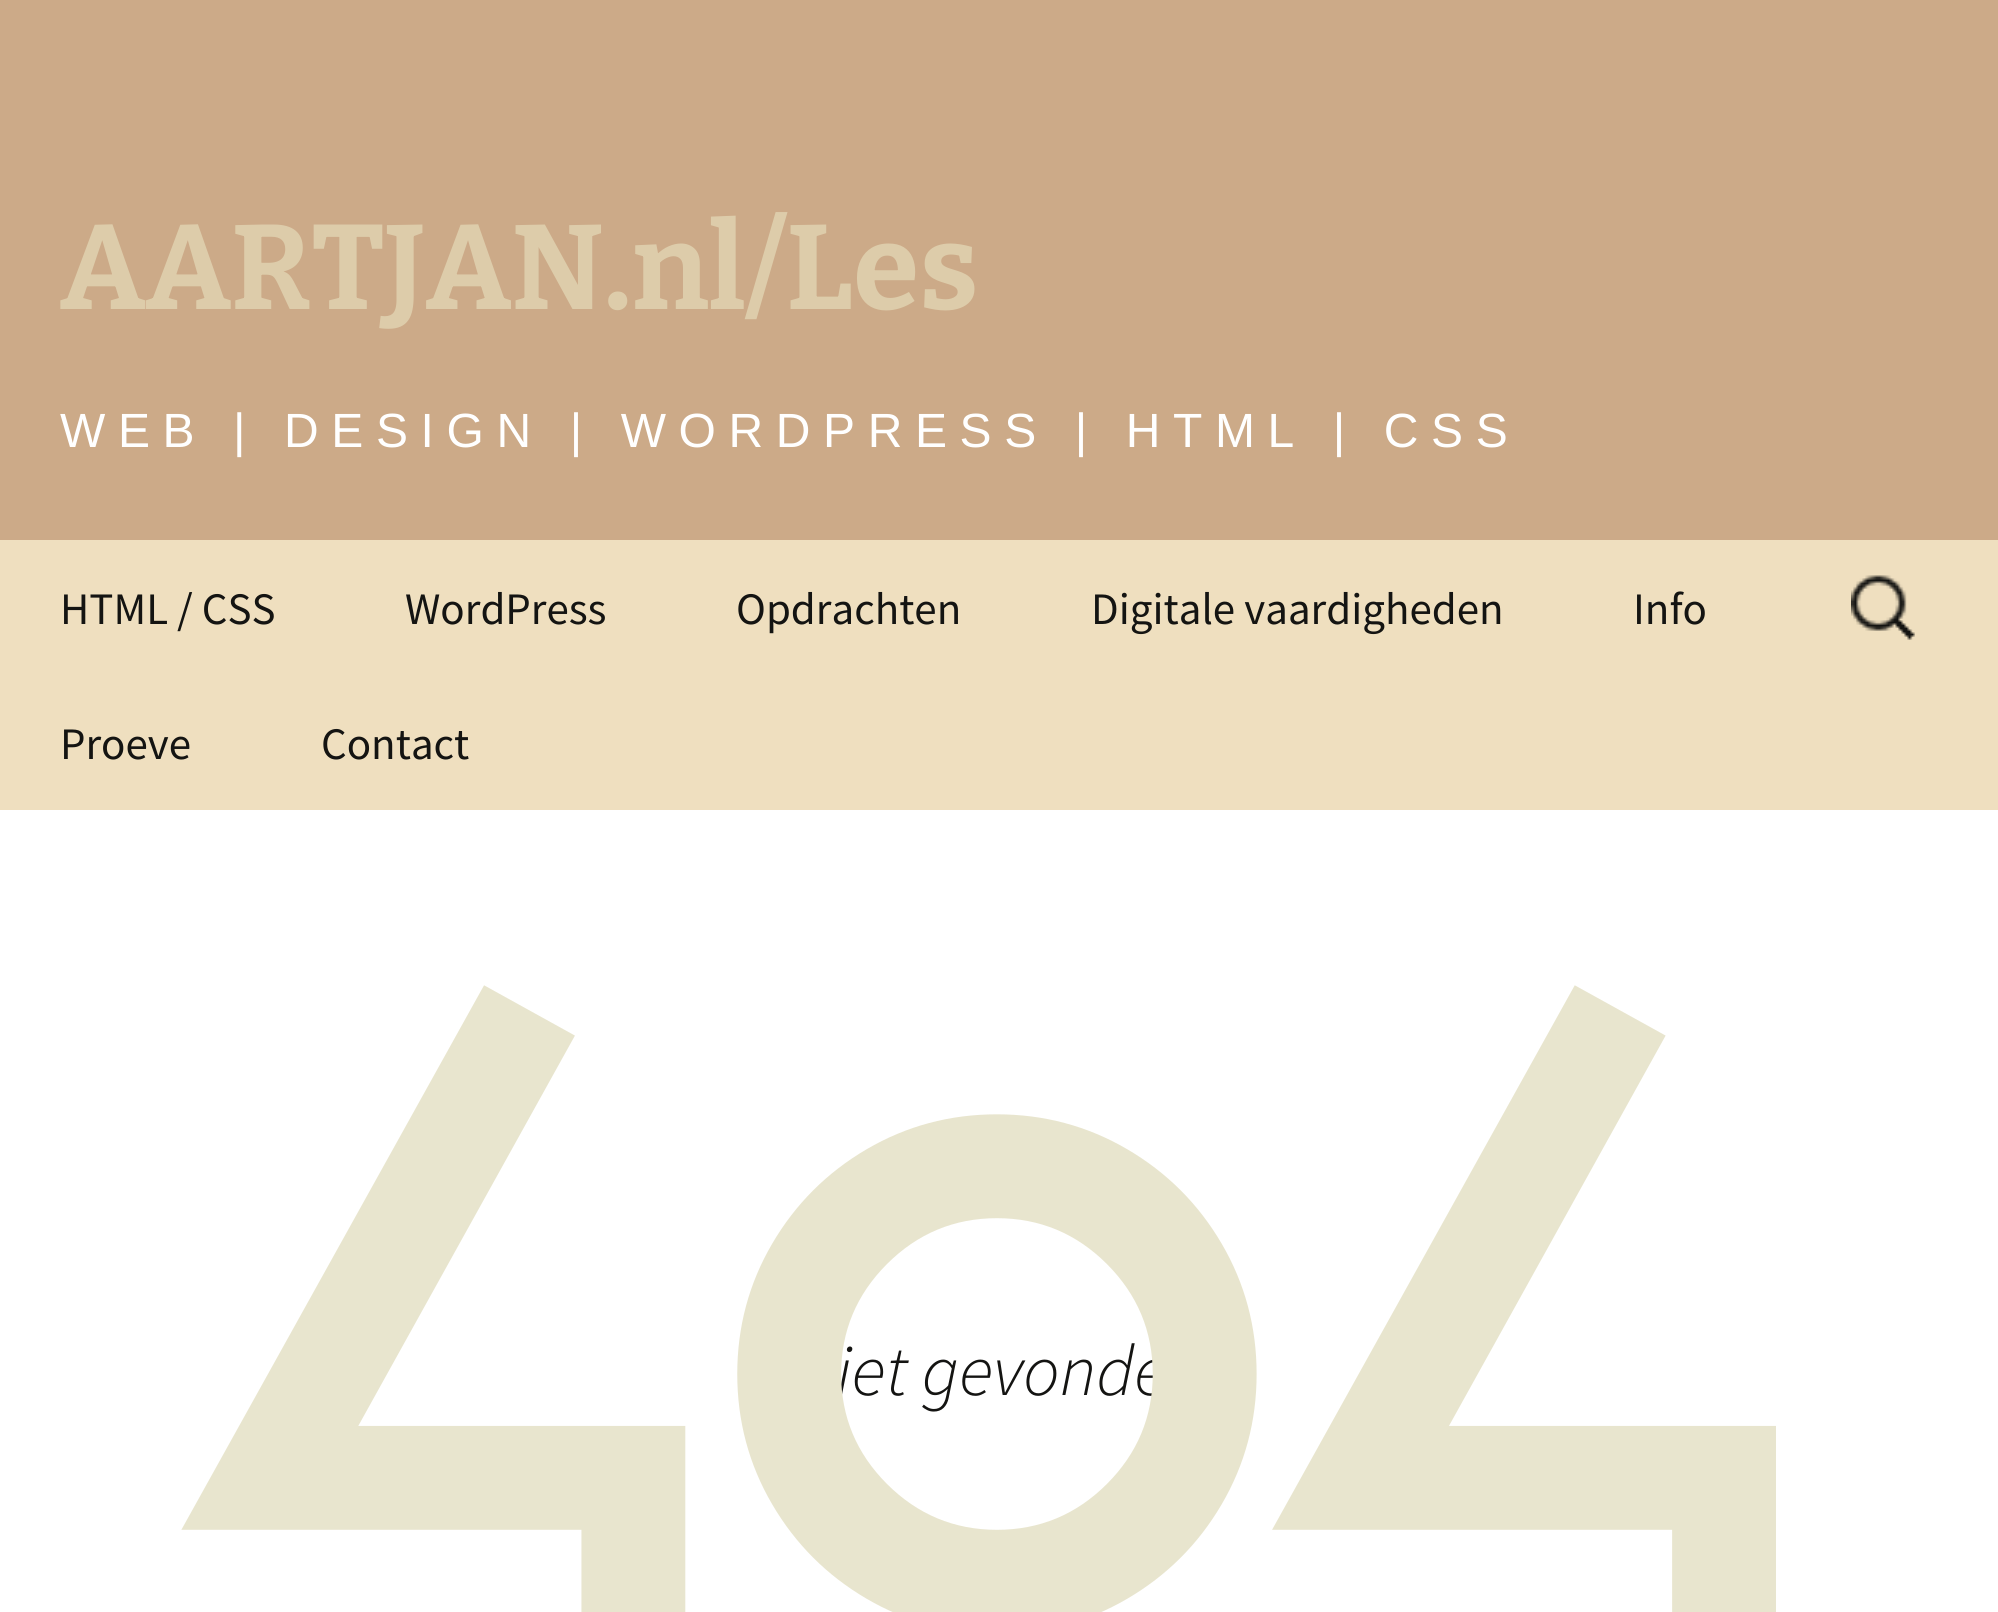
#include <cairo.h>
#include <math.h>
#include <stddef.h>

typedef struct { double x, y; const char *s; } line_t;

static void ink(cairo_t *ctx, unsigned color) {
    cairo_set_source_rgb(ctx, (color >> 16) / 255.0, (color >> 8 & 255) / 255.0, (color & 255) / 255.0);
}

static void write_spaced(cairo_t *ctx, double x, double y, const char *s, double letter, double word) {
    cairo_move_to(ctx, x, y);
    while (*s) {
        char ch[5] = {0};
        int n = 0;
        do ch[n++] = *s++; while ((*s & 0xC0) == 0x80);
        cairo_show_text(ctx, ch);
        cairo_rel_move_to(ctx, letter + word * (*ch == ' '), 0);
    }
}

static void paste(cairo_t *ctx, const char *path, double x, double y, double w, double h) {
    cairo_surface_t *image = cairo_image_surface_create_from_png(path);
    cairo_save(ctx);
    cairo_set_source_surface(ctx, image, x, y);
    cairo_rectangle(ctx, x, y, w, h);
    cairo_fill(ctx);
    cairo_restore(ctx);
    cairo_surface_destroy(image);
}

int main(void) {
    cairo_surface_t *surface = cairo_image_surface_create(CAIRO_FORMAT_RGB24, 1998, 1612);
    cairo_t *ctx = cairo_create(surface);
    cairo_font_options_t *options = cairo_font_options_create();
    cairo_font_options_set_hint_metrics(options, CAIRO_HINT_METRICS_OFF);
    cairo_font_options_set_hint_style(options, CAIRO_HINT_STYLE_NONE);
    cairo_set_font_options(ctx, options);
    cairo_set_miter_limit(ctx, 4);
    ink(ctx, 0xFFFFFF);
    cairo_paint(ctx);
    ink(ctx, 0xCCAA88);
    cairo_rectangle(ctx, 0, 0, 1998, 540);
    cairo_fill(ctx);
    cairo_select_font_face(ctx, "Bitter Thin", CAIRO_FONT_SLANT_NORMAL, CAIRO_FONT_WEIGHT_NORMAL);
    cairo_set_font_size(ctx, 120);
    ink(ctx, 0xDDCCAA);
    cairo_move_to(ctx, 60, 309);
    cairo_show_text(ctx, "AARTJAN.nl/Les");
    cairo_select_font_face(ctx, "Liberation Sans", CAIRO_FONT_SLANT_NORMAL, CAIRO_FONT_WEIGHT_NORMAL);
    cairo_set_font_size(ctx, 48);
    ink(ctx, 0xFFFFFF);
    write_spaced(ctx, 60, 447, "WEB | DESIGN | WORDPRESS | HTML | CSS", 12.6, 0);
    ink(ctx, 0xEFDFBF);
    cairo_rectangle(ctx, 0, 540, 1998, 270);
    cairo_fill(ctx);
    cairo_select_font_face(ctx, "Source Sans Pro", CAIRO_FONT_SLANT_NORMAL, CAIRO_FONT_WEIGHT_NORMAL);
    cairo_set_font_size(ctx, 45);
    ink(ctx, 0x141412);
    {
        static const line_t items[] = {
            {60, 624, "HTML / CSS"},
            {405, 624, "WordPress"},
            {736, 624, "Opdrachten"},
            {1091, 624, "Digitale vaardigheden"},
            {1633, 624, "Info"},
            {60, 759, "Proeve"},
            {321, 759, "Contact"},
        };
        for (size_t i = 0; i < sizeof items / sizeof *items; i++) {
            cairo_move_to(ctx, items[i].x, items[i].y);
            cairo_show_text(ctx, items[i].s);
        }
    }
    paste(ctx, "media/1.png", 1851, 575, 64, 65);
    cairo_select_font_face(ctx, "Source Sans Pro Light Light", CAIRO_FONT_SLANT_ITALIC, CAIRO_FONT_WEIGHT_NORMAL);
    cairo_set_font_size(ctx, 72);
    cairo_move_to(ctx, 836, 1395);
    cairo_show_text(ctx, "iet gevonde");
    paste(ctx, "media/2.png", 181, 985, 1595, 627);
    cairo_surface_write_to_png(surface, "image.png");
    cairo_font_options_destroy(options);
    cairo_destroy(ctx);
    cairo_surface_destroy(surface);
    return 0;
}
